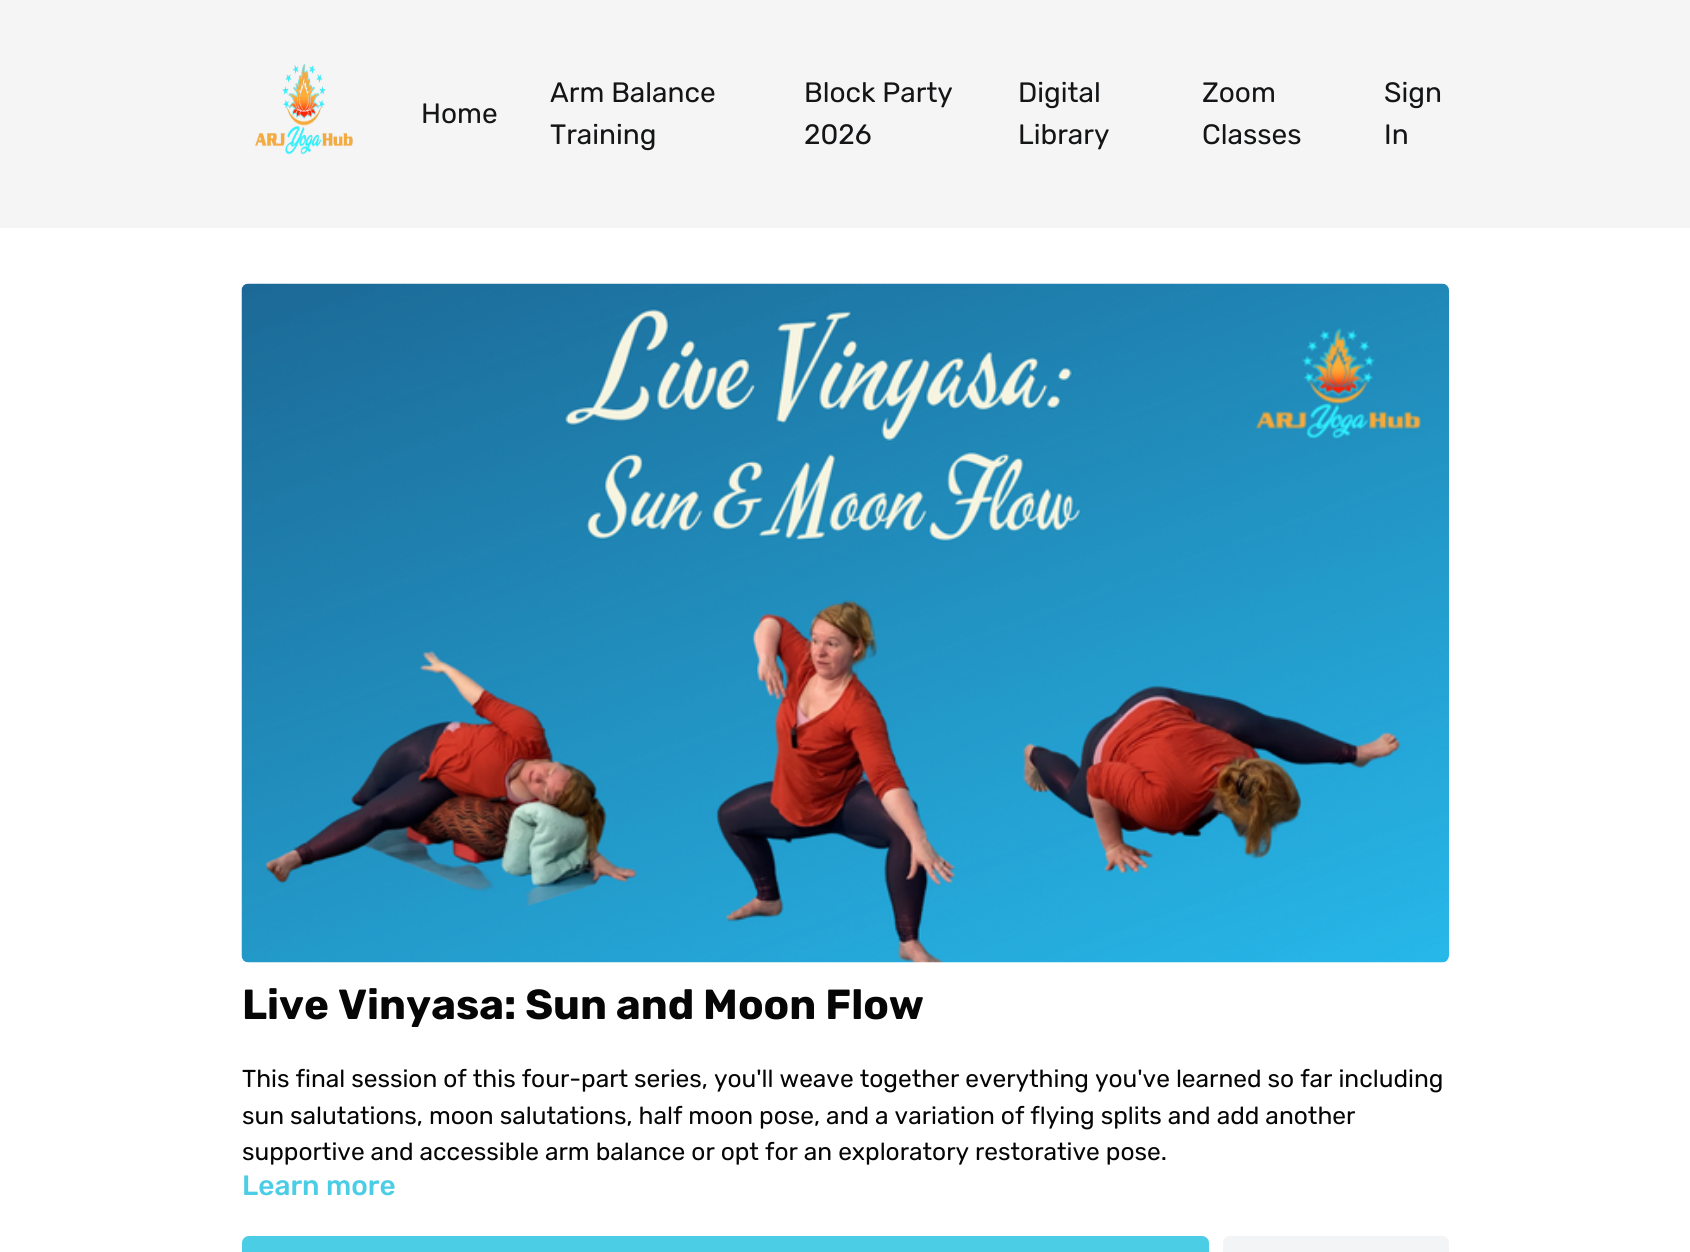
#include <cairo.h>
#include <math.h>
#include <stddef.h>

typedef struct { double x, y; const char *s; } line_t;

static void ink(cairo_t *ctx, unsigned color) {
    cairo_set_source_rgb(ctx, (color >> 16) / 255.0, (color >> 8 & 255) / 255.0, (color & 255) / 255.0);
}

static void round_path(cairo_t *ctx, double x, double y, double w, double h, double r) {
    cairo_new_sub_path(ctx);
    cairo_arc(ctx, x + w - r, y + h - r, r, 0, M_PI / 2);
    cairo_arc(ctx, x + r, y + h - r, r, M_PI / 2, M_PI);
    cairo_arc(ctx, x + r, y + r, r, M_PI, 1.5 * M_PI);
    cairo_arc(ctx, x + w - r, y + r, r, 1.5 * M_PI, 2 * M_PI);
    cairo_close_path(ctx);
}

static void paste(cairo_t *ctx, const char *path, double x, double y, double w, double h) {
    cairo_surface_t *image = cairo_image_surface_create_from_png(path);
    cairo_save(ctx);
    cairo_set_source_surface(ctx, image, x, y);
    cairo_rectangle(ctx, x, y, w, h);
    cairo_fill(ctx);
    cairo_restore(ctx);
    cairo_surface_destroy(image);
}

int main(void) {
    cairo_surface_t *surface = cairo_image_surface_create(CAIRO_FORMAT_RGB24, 1690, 1252);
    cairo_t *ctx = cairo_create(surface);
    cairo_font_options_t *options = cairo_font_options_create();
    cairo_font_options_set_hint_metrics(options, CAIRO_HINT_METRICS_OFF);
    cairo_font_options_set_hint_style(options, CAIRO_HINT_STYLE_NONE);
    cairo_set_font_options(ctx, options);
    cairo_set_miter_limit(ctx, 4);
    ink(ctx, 0xFFFFFF);
    cairo_paint(ctx);
    ink(ctx, 0xF6F5F6);
    cairo_rectangle(ctx, 0, 0, 1690, 228);
    cairo_fill(ctx);
    paste(ctx, "media/1.png", 255, 64, 98, 91);
    cairo_select_font_face(ctx, "Rubik", CAIRO_FONT_SLANT_NORMAL, CAIRO_FONT_WEIGHT_NORMAL);
    cairo_set_font_size(ctx, 28);
    ink(ctx, 0x141516);
    {
        static const line_t items[] = {
            {421, 123, "Home"},
            {550, 102, "Arm Balance"},
            {550, 144, "Training"},
            {804, 102, "Block Party"},
            {804, 144, "2026"},
            {1018, 102, "Digital"},
            {1018, 144, "Library"},
            {1202, 102, "Zoom"},
            {1202, 144, "Classes"},
            {1384, 102, "Sign"},
            {1384, 144, "In"},
        };
        for (size_t i = 0; i < sizeof items / sizeof *items; i++) {
            cairo_move_to(ctx, items[i].x, items[i].y);
            cairo_show_text(ctx, items[i].s);
        }
    }
    paste(ctx, "media/2.png", 241, 283, 1208, 680);
    cairo_select_font_face(ctx, "Rubik", CAIRO_FONT_SLANT_NORMAL, CAIRO_FONT_WEIGHT_BOLD);
    cairo_set_font_size(ctx, 42);
    ink(ctx, 0x060606);
    cairo_move_to(ctx, 242, 1019);
    cairo_show_text(ctx, "Live Vinyasa: Sun and Moon Flow");
    cairo_select_font_face(ctx, "Rubik", CAIRO_FONT_SLANT_NORMAL, CAIRO_FONT_WEIGHT_NORMAL);
    cairo_set_font_size(ctx, 24.5);
    {
        static const line_t items[] = {
            {242, 1087, "This final session of this four-part series, you'll weave together everything you've learned so far including"},
            {242, 1124, "sun salutations, moon salutations, half moon pose, and a variation of flying splits and add another"},
            {242, 1160, "supportive and accessible arm balance or opt for an exploratory restorative pose."},
        };
        for (size_t i = 0; i < sizeof items / sizeof *items; i++) {
            cairo_move_to(ctx, items[i].x, items[i].y);
            cairo_show_text(ctx, items[i].s);
        }
    }
    cairo_select_font_face(ctx, "Rubik Medium", CAIRO_FONT_SLANT_NORMAL, CAIRO_FONT_WEIGHT_NORMAL);
    cairo_set_font_size(ctx, 28);
    ink(ctx, 0x4BCDE6);
    cairo_move_to(ctx, 242, 1195);
    cairo_show_text(ctx, "Learn more");
    round_path(ctx, 242, 1236, 967, 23, 7);
    cairo_fill(ctx);
    ink(ctx, 0xF3F4F6);
    round_path(ctx, 1223, 1236, 226, 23, 7);
    cairo_fill(ctx);
    cairo_surface_write_to_png(surface, "image.png");
    cairo_font_options_destroy(options);
    cairo_destroy(ctx);
    cairo_surface_destroy(surface);
    return 0;
}
